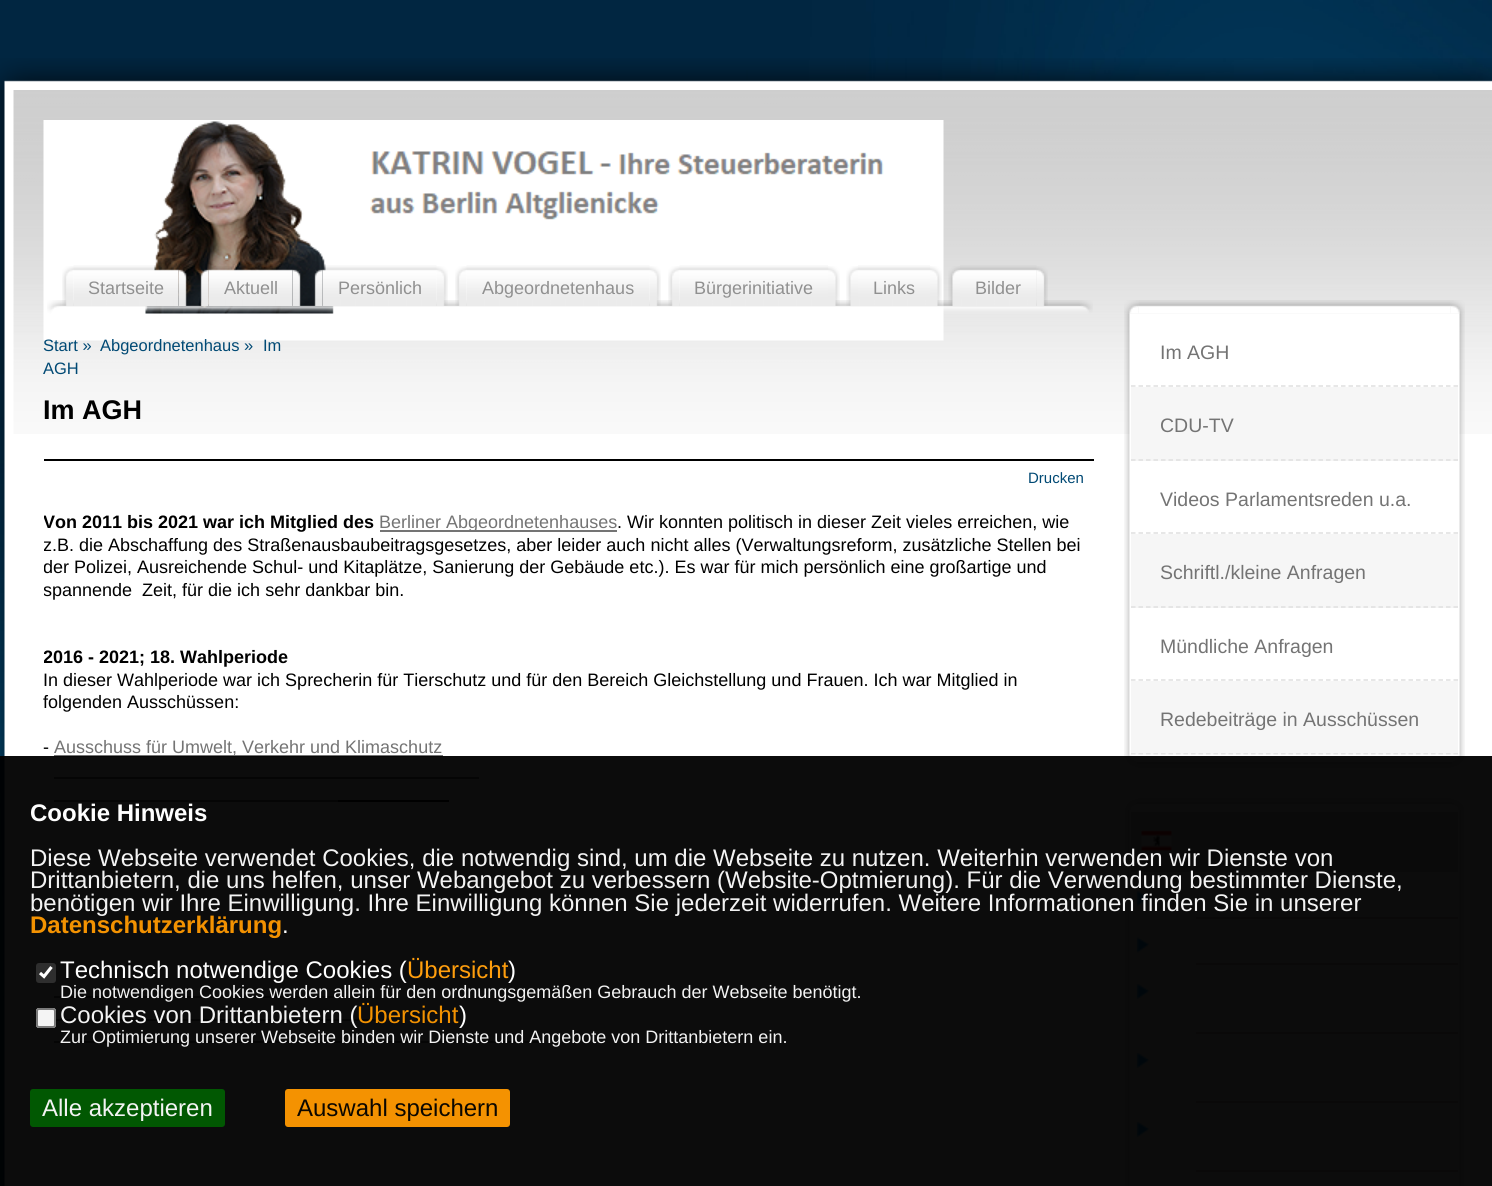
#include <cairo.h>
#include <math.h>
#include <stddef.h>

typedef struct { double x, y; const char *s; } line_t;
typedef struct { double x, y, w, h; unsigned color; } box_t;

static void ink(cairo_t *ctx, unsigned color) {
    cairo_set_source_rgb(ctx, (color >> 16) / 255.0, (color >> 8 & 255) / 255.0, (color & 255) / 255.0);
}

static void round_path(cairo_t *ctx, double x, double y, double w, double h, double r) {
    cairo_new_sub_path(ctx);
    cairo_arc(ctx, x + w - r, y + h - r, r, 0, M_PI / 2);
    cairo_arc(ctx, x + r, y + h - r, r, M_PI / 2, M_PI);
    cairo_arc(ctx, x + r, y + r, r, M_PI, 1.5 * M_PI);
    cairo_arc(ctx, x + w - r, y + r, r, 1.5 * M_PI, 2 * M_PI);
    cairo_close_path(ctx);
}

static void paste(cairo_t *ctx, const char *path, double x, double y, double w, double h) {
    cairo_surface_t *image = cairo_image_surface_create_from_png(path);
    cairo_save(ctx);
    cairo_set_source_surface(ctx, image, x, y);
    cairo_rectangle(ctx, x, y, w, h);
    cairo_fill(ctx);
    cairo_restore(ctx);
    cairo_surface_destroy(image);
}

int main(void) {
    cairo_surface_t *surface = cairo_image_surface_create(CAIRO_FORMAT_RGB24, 1492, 1186);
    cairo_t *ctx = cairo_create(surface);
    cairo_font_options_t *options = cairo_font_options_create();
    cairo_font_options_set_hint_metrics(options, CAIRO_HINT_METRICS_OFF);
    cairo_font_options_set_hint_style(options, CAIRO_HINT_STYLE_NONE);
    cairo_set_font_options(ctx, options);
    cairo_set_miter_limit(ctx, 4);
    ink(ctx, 0xFFFFFF);
    cairo_paint(ctx);
    paste(ctx, "media/1.png", 0, 0, 1492, 1186);
    paste(ctx, "media/2.png", 0, 58, 1492, 32);
    paste(ctx, "media/3.png", 0, 90, 1492, 1096);
    paste(ctx, "media/4.png", 13, 90, 1479, 344);
    paste(ctx, "media/5.png", 43, 120, 901, 221);
    paste(ctx, "media/25.png", 47, 300, 1046, 14);
    paste(ctx, "media/6.png", 62, 266, 12, 40);
    paste(ctx, "media/7.png", 73, 265, 106, 41);
    cairo_select_font_face(ctx, "Liberation Sans", CAIRO_FONT_SLANT_NORMAL, CAIRO_FONT_WEIGHT_NORMAL);
    cairo_set_font_size(ctx, 18);
    ink(ctx, 0x909090);
    cairo_move_to(ctx, 88, 294);
    cairo_show_text(ctx, "Startseite");
    paste(ctx, "media/8.png", 178, 269, 10, 37);
    paste(ctx, "media/9.png", 200, 269, 9, 37);
    paste(ctx, "media/10.png", 208, 266, 85, 40);
    cairo_move_to(ctx, 224, 294);
    cairo_show_text(ctx, "Aktuell");
    paste(ctx, "media/11.png", 292, 269, 9, 37);
    paste(ctx, "media/12.png", 314, 269, 9, 37);
    paste(ctx, "media/13.png", 322, 265, 115, 41);
    cairo_move_to(ctx, 338, 294);
    cairo_show_text(ctx, "Persönlich");
    paste(ctx, "media/14.png", 436, 266, 12, 40);
    paste(ctx, "media/6.png", 455, 266, 12, 40);
    paste(ctx, "media/15.png", 466, 265, 184, 41);
    cairo_move_to(ctx, 482, 294);
    cairo_show_text(ctx, "Abgeordnetenhaus");
    paste(ctx, "media/14.png", 649, 266, 12, 40);
    paste(ctx, "media/16.png", 668, 266, 12, 40);
    paste(ctx, "media/17.png", 679, 265, 149, 41);
    cairo_move_to(ctx, 694, 294);
    cairo_show_text(ctx, "Bürgerinitiative");
    paste(ctx, "media/18.png", 828, 266, 12, 40);
    paste(ctx, "media/19.png", 846, 266, 12, 40);
    paste(ctx, "media/20.png", 858, 265, 72, 41);
    cairo_move_to(ctx, 873, 294);
    cairo_show_text(ctx, "Links");
    paste(ctx, "media/21.png", 930, 266, 12, 40);
    paste(ctx, "media/22.png", 948, 266, 12, 40);
    paste(ctx, "media/23.png", 960, 265, 77, 41);
    cairo_move_to(ctx, 975, 294);
    cairo_show_text(ctx, "Bilder");
    paste(ctx, "media/24.png", 1036, 266, 12, 40);
    cairo_set_font_size(ctx, 16.5);
    ink(ctx, 0x004974);
    {
        static const line_t items[] = {
            {43, 351, "Start »"},
            {100, 351, "Abgeordnetenhaus »"},
            {263, 351, "Im"},
            {43, 374, "AGH"},
        };
        for (size_t i = 0; i < sizeof items / sizeof *items; i++) {
            cairo_move_to(ctx, items[i].x, items[i].y);
            cairo_show_text(ctx, items[i].s);
        }
    }
    cairo_select_font_face(ctx, "Liberation Sans", CAIRO_FONT_SLANT_NORMAL, CAIRO_FONT_WEIGHT_BOLD);
    cairo_set_font_size(ctx, 27);
    ink(ctx, 0x000000);
    cairo_move_to(ctx, 43, 419);
    cairo_show_text(ctx, "Im AGH");
    cairo_rectangle(ctx, 44, 459, 1050, 2);
    cairo_fill(ctx);
    cairo_select_font_face(ctx, "Liberation Sans", CAIRO_FONT_SLANT_NORMAL, CAIRO_FONT_WEIGHT_NORMAL);
    cairo_set_font_size(ctx, 15);
    ink(ctx, 0x004974);
    cairo_move_to(ctx, 1028, 483);
    cairo_show_text(ctx, "Drucken");
    cairo_save(ctx);
    cairo_rectangle(ctx, 44, 512, 1050, 642);
    cairo_clip(ctx);
    cairo_select_font_face(ctx, "Liberation Sans", CAIRO_FONT_SLANT_NORMAL, CAIRO_FONT_WEIGHT_BOLD);
    cairo_set_font_size(ctx, 18);
    ink(ctx, 0x000000);
    cairo_move_to(ctx, 43, 528);
    cairo_show_text(ctx, "Von 2011 bis 2021 war ich Mitglied des");
    cairo_restore(ctx);
    ink(ctx, 0x747474);
    cairo_rectangle(ctx, 380, 530, 237, 2);
    cairo_fill(ctx);
    cairo_set_font_size(ctx, 18);
    cairo_move_to(ctx, 379, 528);
    cairo_show_text(ctx, "Berliner Abgeordnetenhauses");
    ink(ctx, 0x000000);
    cairo_move_to(ctx, 617, 528);
    cairo_show_text(ctx, ". Wir konnten politisch in dieser Zeit vieles erreichen, wie");
    cairo_save(ctx);
    cairo_rectangle(ctx, 44, 512, 1050, 642);
    cairo_clip(ctx);
    {
        static const line_t items[] = {
            {43, 551, "z.B. die Abschaffung des Straßenausbaubeitragsgesetzes, aber leider auch nicht alles (Verwaltungsreform, zusätzliche Stellen bei"},
            {43, 573, "der Polizei, Ausreichende Schul- und Kitaplätze, Sanierung der Gebäude etc.). Es war für mich persönlich eine großartige und"},
            {43, 596, "spannende  Zeit, für die ich sehr dankbar bin."},
        };
        for (size_t i = 0; i < sizeof items / sizeof *items; i++) {
            cairo_move_to(ctx, items[i].x, items[i].y);
            cairo_show_text(ctx, items[i].s);
        }
    }
    cairo_select_font_face(ctx, "Liberation Sans", CAIRO_FONT_SLANT_NORMAL, CAIRO_FONT_WEIGHT_BOLD);
    cairo_move_to(ctx, 43, 663);
    cairo_show_text(ctx, "2016 - 2021; 18. Wahlperiode");
    cairo_restore(ctx);
    {
        static const line_t items[] = {
            {43, 686, "In dieser Wahlperiode war ich Sprecherin für Tierschutz und für den Bereich Gleichstellung und Frauen. Ich war Mitglied in"},
            {43, 708, "folgenden Ausschüssen:"},
            {43, 753, "-"},
        };
        for (size_t i = 0; i < sizeof items / sizeof *items; i++) {
            cairo_move_to(ctx, items[i].x, items[i].y);
            cairo_show_text(ctx, items[i].s);
        }
    }
    ink(ctx, 0x747474);
    cairo_rectangle(ctx, 54, 755, 389, 2);
    cairo_fill(ctx);
    cairo_move_to(ctx, 54, 753);
    cairo_show_text(ctx, "Ausschuss für Umwelt, Verkehr und Klimaschutz");
    {
        static const box_t items[] = {
            {54, 777, 425, 2, 0x747474},
            {54, 800, 284, 2, 0x747474},
            {338, 800, 111, 2, 0x000000},
            {54, 996, 320, 2, 0x747474},
            {54, 1019, 324, 2, 0x747474},
            {54, 1041, 488, 2, 0x747474},
        };
        for (size_t i = 0; i < sizeof items / sizeof *items; i++) {
            ink(ctx, items[i].color);
            cairo_rectangle(ctx, items[i].x, items[i].y, items[i].w, items[i].h);
            cairo_fill(ctx);
        }
    }
    paste(ctx, "media/26.png", 1124, 300, 15, 14);
    paste(ctx, "media/27.png", 1138, 300, 313, 14);
    paste(ctx, "media/28.png", 1450, 300, 15, 14);
    paste(ctx, "media/29.png", 1124, 313, 341, 442);
    cairo_new_path(ctx);
    cairo_move_to(ctx, 1131, 386);
    cairo_line_to(ctx, 1458, 386);
    ink(ctx, 0xDFDFDF);
    cairo_set_line_width(ctx, 1.5);
    cairo_set_dash(ctx, (double[]){4.5, 3}, 2, 0);
    cairo_stroke(ctx);
    cairo_set_font_size(ctx, 19.5);
    ink(ctx, 0x747474);
    cairo_move_to(ctx, 1160, 359);
    cairo_show_text(ctx, "Im AGH");
    ink(ctx, 0xF6F6F6);
    cairo_rectangle(ctx, 1131, 387, 327, 74);
    cairo_fill(ctx);
    cairo_new_path(ctx);
    cairo_move_to(ctx, 1131, 460);
    cairo_line_to(ctx, 1458, 460);
    ink(ctx, 0xDFDFDF);
    cairo_stroke(ctx);
    ink(ctx, 0x747474);
    cairo_move_to(ctx, 1160, 432);
    cairo_show_text(ctx, "CDU-TV");
    cairo_new_path(ctx);
    cairo_move_to(ctx, 1131, 533);
    cairo_line_to(ctx, 1458, 533);
    ink(ctx, 0xDFDFDF);
    cairo_stroke(ctx);
    ink(ctx, 0x747474);
    cairo_move_to(ctx, 1160, 506);
    cairo_show_text(ctx, "Videos Parlamentsreden u.a.");
    ink(ctx, 0xF6F6F6);
    cairo_rectangle(ctx, 1131, 534, 327, 74);
    cairo_fill(ctx);
    cairo_new_path(ctx);
    cairo_move_to(ctx, 1131, 607);
    cairo_line_to(ctx, 1458, 607);
    ink(ctx, 0xDFDFDF);
    cairo_stroke(ctx);
    ink(ctx, 0x747474);
    cairo_move_to(ctx, 1160, 579);
    cairo_show_text(ctx, "Schriftl./kleine Anfragen");
    cairo_new_path(ctx);
    cairo_move_to(ctx, 1131, 680);
    cairo_line_to(ctx, 1458, 680);
    ink(ctx, 0xDFDFDF);
    cairo_stroke(ctx);
    ink(ctx, 0x747474);
    cairo_move_to(ctx, 1160, 653);
    cairo_show_text(ctx, "Mündliche Anfragen");
    ink(ctx, 0xF6F6F6);
    cairo_rectangle(ctx, 1131, 681, 327, 74);
    cairo_fill(ctx);
    cairo_new_path(ctx);
    cairo_move_to(ctx, 1131, 754);
    cairo_line_to(ctx, 1458, 754);
    ink(ctx, 0xDFDFDF);
    cairo_stroke(ctx);
    ink(ctx, 0x747474);
    cairo_move_to(ctx, 1160, 726);
    cairo_show_text(ctx, "Redebeiträge in Ausschüssen");
    paste(ctx, "media/30.png", 1124, 754, 15, 14);
    paste(ctx, "media/31.png", 1138, 754, 313, 14);
    paste(ctx, "media/32.png", 1450, 754, 15, 14);
    paste(ctx, "media/33.png", 1124, 798, 15, 14);
    paste(ctx, "media/34.png", 1138, 798, 313, 7);
    paste(ctx, "media/35.png", 1450, 798, 15, 14);
    paste(ctx, "media/36.png", 1124, 811, 341, 375);
    ink(ctx, 0xDEDEDE);
    cairo_rectangle(ctx, 1131, 812, 327, 60);
    cairo_fill(ctx);
    paste(ctx, "media/37.png", 1141, 830, 31, 21);
    paste(ctx, "media/38.png", 1136, 891, 13, 15);
    ink(ctx, 0xCDC7C7);
    cairo_rectangle(ctx, 1196, 917, 262, 2);
    cairo_fill(ctx);
    paste(ctx, "media/39.png", 1136, 937, 13, 16);
    cairo_rectangle(ctx, 1196, 963, 262, 2);
    cairo_fill(ctx);
    paste(ctx, "media/38.png", 1136, 984, 13, 15);
    cairo_rectangle(ctx, 1196, 1032, 262, 2);
    cairo_fill(ctx);
    paste(ctx, "media/38.png", 1136, 1053, 13, 15);
    cairo_rectangle(ctx, 1196, 1101, 262, 2);
    cairo_fill(ctx);
    paste(ctx, "media/38.png", 1136, 1122, 13, 15);
    cairo_rectangle(ctx, 1196, 1170, 262, 2);
    cairo_fill(ctx);
    cairo_set_source_rgba(ctx, 0, 0, 0, 0.95);
    cairo_rectangle(ctx, 0, 756, 1492, 430);
    cairo_fill(ctx);
    cairo_select_font_face(ctx, "Liberation Sans", CAIRO_FONT_SLANT_NORMAL, CAIRO_FONT_WEIGHT_BOLD);
    cairo_set_font_size(ctx, 24);
    ink(ctx, 0xFFFFFF);
    cairo_move_to(ctx, 30, 821);
    cairo_show_text(ctx, "Cookie Hinweis");
    cairo_select_font_face(ctx, "Liberation Sans", CAIRO_FONT_SLANT_NORMAL, CAIRO_FONT_WEIGHT_NORMAL);
    ink(ctx, 0xF3F3F3);
    {
        static const line_t items[] = {
            {30, 866, "Diese Webseite verwendet Cookies, die notwendig sind, um die Webseite zu nutzen. Weiterhin verwenden wir Dienste von"},
            {30, 888, "Drittanbietern, die uns helfen, unser Webangebot zu verbessern (Website-Optmierung). Für die Verwendung bestimmter Dienste,"},
            {30, 911, "benötigen wir Ihre Einwilligung. Ihre Einwilligung können Sie jederzeit widerrufen. Weitere Informationen finden Sie in unserer"},
        };
        for (size_t i = 0; i < sizeof items / sizeof *items; i++) {
            cairo_move_to(ctx, items[i].x, items[i].y);
            cairo_show_text(ctx, items[i].s);
        }
    }
    cairo_select_font_face(ctx, "Liberation Sans", CAIRO_FONT_SLANT_NORMAL, CAIRO_FONT_WEIGHT_BOLD);
    ink(ctx, 0xF39201);
    cairo_move_to(ctx, 30, 933);
    cairo_show_text(ctx, "Datenschutzerklärung");
    cairo_select_font_face(ctx, "Liberation Sans", CAIRO_FONT_SLANT_NORMAL, CAIRO_FONT_WEIGHT_NORMAL);
    ink(ctx, 0xFFFFFF);
    cairo_move_to(ctx, 282, 933);
    cairo_show_text(ctx, ".");
    ink(ctx, 0x2E2E2E);
    round_path(ctx, 36, 963, 20, 20, 3);
    cairo_fill(ctx);
    cairo_new_path(ctx);
    cairo_move_to(ctx, 40, 973);
    cairo_line_to(ctx, 44, 976.5);
    cairo_line_to(ctx, 51.5, 967);
    ink(ctx, 0xFFFFFF);
    cairo_set_line_width(ctx, 3.1);
    cairo_set_dash(ctx, NULL, 0, 0);
    cairo_stroke(ctx);
    cairo_move_to(ctx, 60, 978);
    cairo_show_text(ctx, "Technisch notwendige Cookies (");
    ink(ctx, 0xFF9E0D);
    cairo_move_to(ctx, 407, 978);
    cairo_show_text(ctx, "Übersicht");
    ink(ctx, 0xFFFFFF);
    cairo_move_to(ctx, 508, 978);
    cairo_show_text(ctx, ")");
    cairo_set_font_size(ctx, 18);
    ink(ctx, 0xF3F3F3);
    cairo_move_to(ctx, 60, 998);
    cairo_show_text(ctx, "Die notwendigen Cookies werden allein für den ordnungsgemäßen Gebrauch der Webseite benötigt.");
    cairo_set_source_rgba(ctx, 1, 1, 1, 0.95);
    round_path(ctx, 36, 1008, 20, 20, 3);
    cairo_fill(ctx);
    round_path(ctx, 37, 1009, 18, 18, 2);
    cairo_set_source_rgba(ctx, 0.463, 0.463, 0.463, 0.95);
    cairo_set_line_width(ctx, 2);
    cairo_stroke(ctx);
    cairo_set_font_size(ctx, 24);
    ink(ctx, 0xF3F3F3);
    cairo_move_to(ctx, 60, 1023);
    cairo_show_text(ctx, "Cookies von Drittanbietern (");
    ink(ctx, 0xF39201);
    cairo_move_to(ctx, 357, 1023);
    cairo_show_text(ctx, "Übersicht");
    ink(ctx, 0xFFFFFF);
    cairo_move_to(ctx, 459, 1023);
    cairo_show_text(ctx, ")");
    cairo_set_font_size(ctx, 18);
    ink(ctx, 0xF3F3F3);
    cairo_move_to(ctx, 60, 1043);
    cairo_show_text(ctx, "Zur Optimierung unserer Webseite binden wir Dienste und Angebote von Drittanbietern ein.");
    cairo_set_source_rgba(ctx, 0, 0.361, 0.008, 0.95);
    round_path(ctx, 30, 1089, 195, 38, 3);
    cairo_fill(ctx);
    cairo_set_font_size(ctx, 24);
    ink(ctx, 0xF3F3F3);
    cairo_move_to(ctx, 42, 1116);
    cairo_show_text(ctx, "Alle akzeptieren");
    cairo_set_source_rgba(ctx, 1, 0.6, 0, 0.95);
    round_path(ctx, 285, 1089, 225, 38, 3);
    cairo_fill(ctx);
    ink(ctx, 0x0C0700);
    cairo_move_to(ctx, 297, 1116);
    cairo_show_text(ctx, "Auswahl speichern");
    cairo_surface_write_to_png(surface, "image.png");
    cairo_font_options_destroy(options);
    cairo_destroy(ctx);
    cairo_surface_destroy(surface);
    return 0;
}
